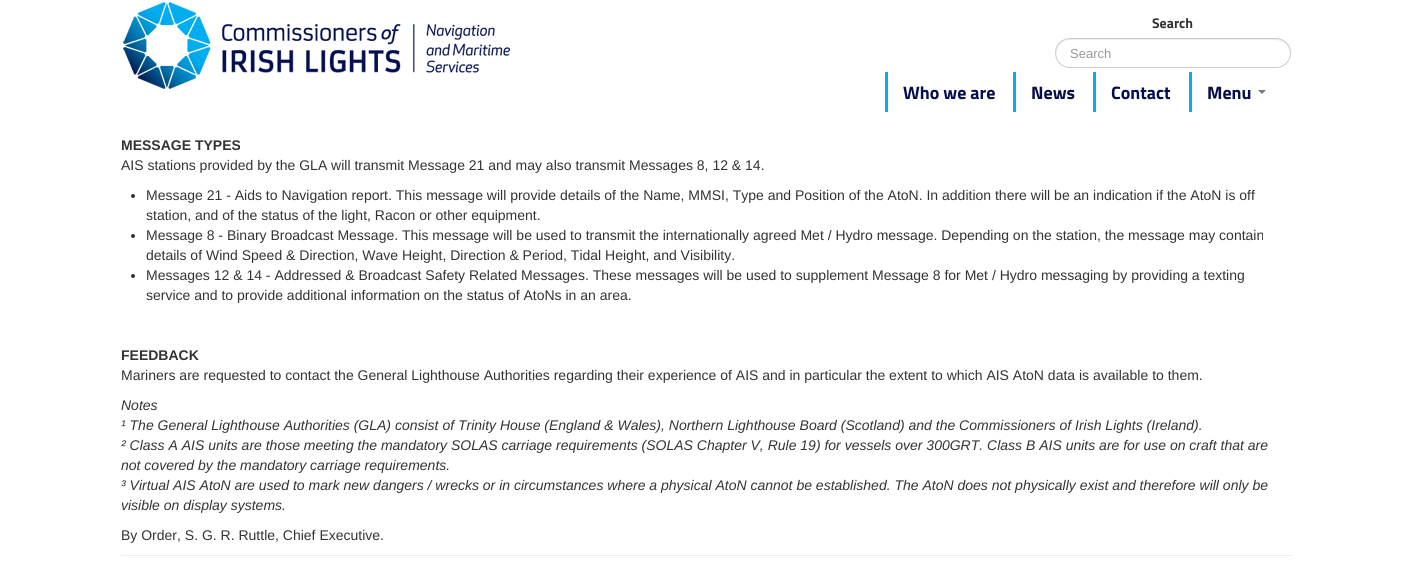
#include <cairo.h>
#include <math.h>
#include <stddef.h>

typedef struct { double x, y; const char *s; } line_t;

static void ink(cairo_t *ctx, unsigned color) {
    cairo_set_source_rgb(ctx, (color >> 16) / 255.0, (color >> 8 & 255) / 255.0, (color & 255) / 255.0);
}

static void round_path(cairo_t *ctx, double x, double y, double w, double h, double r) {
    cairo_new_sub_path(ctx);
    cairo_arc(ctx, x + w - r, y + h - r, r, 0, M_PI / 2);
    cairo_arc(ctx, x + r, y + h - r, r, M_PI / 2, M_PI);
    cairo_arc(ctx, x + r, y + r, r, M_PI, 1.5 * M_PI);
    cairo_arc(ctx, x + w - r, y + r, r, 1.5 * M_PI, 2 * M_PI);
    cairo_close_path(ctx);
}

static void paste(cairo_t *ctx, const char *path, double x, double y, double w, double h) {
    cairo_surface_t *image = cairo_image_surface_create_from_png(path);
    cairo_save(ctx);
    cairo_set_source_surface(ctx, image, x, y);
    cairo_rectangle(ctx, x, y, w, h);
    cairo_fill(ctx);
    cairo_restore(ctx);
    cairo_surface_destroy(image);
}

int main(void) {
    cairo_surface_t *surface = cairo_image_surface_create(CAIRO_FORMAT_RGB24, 1411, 574);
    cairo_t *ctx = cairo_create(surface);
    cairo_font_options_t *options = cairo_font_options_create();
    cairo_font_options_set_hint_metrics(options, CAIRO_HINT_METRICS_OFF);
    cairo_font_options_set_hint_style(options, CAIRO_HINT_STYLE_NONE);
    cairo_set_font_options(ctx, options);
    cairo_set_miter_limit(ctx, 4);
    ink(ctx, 0xFFFFFF);
    cairo_paint(ctx);
    paste(ctx, "media/1.png", 123, 2, 387, 87);
    cairo_select_font_face(ctx, "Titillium", CAIRO_FONT_SLANT_NORMAL, CAIRO_FONT_WEIGHT_BOLD);
    cairo_set_font_size(ctx, 14);
    ink(ctx, 0x333333);
    cairo_move_to(ctx, 1152, 28);
    cairo_show_text(ctx, "Search");
    ink(ctx, 0xECECEC);
    cairo_new_path(ctx);
    cairo_move_to(ctx, 1070, 40);
    cairo_line_to(ctx, 1276, 40);
    cairo_line_to(ctx, 1281, 41);
    cairo_curve_to(ctx, 1286, 43, 1289, 48, 1290, 53);
    cairo_curve_to(ctx, 1290, 45, 1284, 39, 1276, 39);
    cairo_line_to(ctx, 1070, 39);
    cairo_curve_to(ctx, 1062, 39, 1056, 45, 1056, 53);
    cairo_curve_to(ctx, 1056, 55, 1056, 57, 1057, 59);
    cairo_curve_to(ctx, 1055, 50, 1059, 40, 1070, 40);
    cairo_close_path(ctx);
    cairo_fill(ctx);
    round_path(ctx, 1055.5, 38.5, 235, 29, 14.5);
    ink(ctx, 0xCCCCCC);
    cairo_set_line_width(ctx, 1);
    cairo_stroke(ctx);
    cairo_select_font_face(ctx, "Liberation Sans", CAIRO_FONT_SLANT_NORMAL, CAIRO_FONT_WEIGHT_NORMAL);
    cairo_set_font_size(ctx, 13);
    ink(ctx, 0x999999);
    cairo_move_to(ctx, 1070, 58);
    cairo_show_text(ctx, "Search");
    ink(ctx, 0x00ADEE);
    cairo_rectangle(ctx, 885, 72, 3, 40);
    cairo_fill(ctx);
    cairo_select_font_face(ctx, "Titillium", CAIRO_FONT_SLANT_NORMAL, CAIRO_FONT_WEIGHT_BOLD);
    cairo_set_font_size(ctx, 18);
    ink(ctx, 0x040E4F);
    cairo_move_to(ctx, 903, 99);
    cairo_show_text(ctx, "Who we are");
    ink(ctx, 0x00ADEE);
    cairo_rectangle(ctx, 1013, 72, 3, 40);
    cairo_fill(ctx);
    ink(ctx, 0x040E4F);
    cairo_move_to(ctx, 1031, 99);
    cairo_show_text(ctx, "News");
    ink(ctx, 0x00ADEE);
    cairo_rectangle(ctx, 1093, 72, 3, 40);
    cairo_fill(ctx);
    ink(ctx, 0x040E4F);
    cairo_move_to(ctx, 1111, 99);
    cairo_show_text(ctx, "Contact");
    ink(ctx, 0x00ADEE);
    cairo_rectangle(ctx, 1189, 72, 3, 40);
    cairo_fill(ctx);
    ink(ctx, 0x040E4F);
    cairo_move_to(ctx, 1207, 99);
    cairo_show_text(ctx, "Menu");
    ink(ctx, 0x777777);
    cairo_new_path(ctx);
    cairo_move_to(ctx, 1258, 90);
    cairo_line_to(ctx, 1266, 90);
    cairo_line_to(ctx, 1262, 94);
    cairo_close_path(ctx);
    cairo_fill(ctx);
    cairo_select_font_face(ctx, "Liberation Sans", CAIRO_FONT_SLANT_NORMAL, CAIRO_FONT_WEIGHT_BOLD);
    cairo_set_font_size(ctx, 14);
    ink(ctx, 0x333333);
    cairo_move_to(ctx, 121, 150);
    cairo_show_text(ctx, "MESSAGE TYPES");
    cairo_select_font_face(ctx, "Liberation Sans", CAIRO_FONT_SLANT_NORMAL, CAIRO_FONT_WEIGHT_NORMAL);
    cairo_move_to(ctx, 121, 170);
    cairo_show_text(ctx, "AIS stations provided by the GLA will transmit Message 21 and may also transmit Messages 8, 12 & 14.");
    cairo_new_path(ctx);
    cairo_arc(ctx, 133, 196, 2, 0, 2 * M_PI);
    cairo_fill(ctx);
    cairo_move_to(ctx, 146, 200);
    cairo_show_text(ctx, "Message 21 - Aids to Navigation report. This message will provide details of the Name, MMSI, Type and Position of the AtoN. In addition there will be an indication if the AtoN is off");
    cairo_move_to(ctx, 146, 220);
    cairo_show_text(ctx, "station, and of the status of the light, Racon or other equipment.");
    cairo_new_path(ctx);
    cairo_arc(ctx, 133, 236, 2, 0, 2 * M_PI);
    cairo_fill(ctx);
    cairo_move_to(ctx, 146, 240);
    cairo_show_text(ctx, "Message 8 - Binary Broadcast Message. This message will be used to transmit the internationally agreed Met / Hydro message. Depending on the station, the message may contain");
    cairo_move_to(ctx, 146, 260);
    cairo_show_text(ctx, "details of Wind Speed & Direction, Wave Height, Direction & Period, Tidal Height, and Visibility.");
    cairo_new_path(ctx);
    cairo_arc(ctx, 133, 276, 2, 0, 2 * M_PI);
    cairo_fill(ctx);
    cairo_move_to(ctx, 146, 280);
    cairo_show_text(ctx, "Messages 12 & 14 - Addressed & Broadcast Safety Related Messages. These messages will be used to supplement Message 8 for Met / Hydro messaging by providing a texting");
    cairo_move_to(ctx, 146, 300);
    cairo_show_text(ctx, "service and to provide additional information on the status of AtoNs in an area.");
    cairo_select_font_face(ctx, "Liberation Sans", CAIRO_FONT_SLANT_NORMAL, CAIRO_FONT_WEIGHT_BOLD);
    cairo_move_to(ctx, 121, 360);
    cairo_show_text(ctx, "FEEDBACK");
    cairo_select_font_face(ctx, "Liberation Sans", CAIRO_FONT_SLANT_NORMAL, CAIRO_FONT_WEIGHT_NORMAL);
    cairo_move_to(ctx, 121, 380);
    cairo_show_text(ctx, "Mariners are requested to contact the General Lighthouse Authorities regarding their experience of AIS and in particular the extent to which AIS AtoN data is available to them.");
    cairo_select_font_face(ctx, "Liberation Sans", CAIRO_FONT_SLANT_ITALIC, CAIRO_FONT_WEIGHT_NORMAL);
    {
        static const line_t items[] = {
            {121, 410, "Notes"},
            {121, 430, "¹ The General Lighthouse Authorities (GLA) consist of Trinity House (England & Wales), Northern Lighthouse Board (Scotland) and the Commissioners of Irish Lights (Ireland)."},
            {121, 450, "² Class A AIS units are those meeting the mandatory SOLAS carriage requirements (SOLAS Chapter V, Rule 19) for vessels over 300GRT. Class B AIS units are for use on craft that are"},
            {121, 470, "not covered by the mandatory carriage requirements."},
            {121, 490, "³ Virtual AIS AtoN are used to mark new dangers / wrecks or in circumstances where a physical AtoN cannot be established. The AtoN does not physically exist and therefore will only be"},
            {121, 510, "visible on display systems."},
        };
        for (size_t i = 0; i < sizeof items / sizeof *items; i++) {
            cairo_move_to(ctx, items[i].x, items[i].y);
            cairo_show_text(ctx, items[i].s);
        }
    }
    cairo_select_font_face(ctx, "Liberation Sans", CAIRO_FONT_SLANT_NORMAL, CAIRO_FONT_WEIGHT_NORMAL);
    cairo_move_to(ctx, 121, 540);
    cairo_show_text(ctx, "By Order, S. G. R. Ruttle, Chief Executive.");
    ink(ctx, 0xEEEEEE);
    cairo_rectangle(ctx, 121, 555, 1170, 1);
    cairo_fill(ctx);
    cairo_surface_write_to_png(surface, "image.png");
    cairo_font_options_destroy(options);
    cairo_destroy(ctx);
    cairo_surface_destroy(surface);
    return 0;
}
